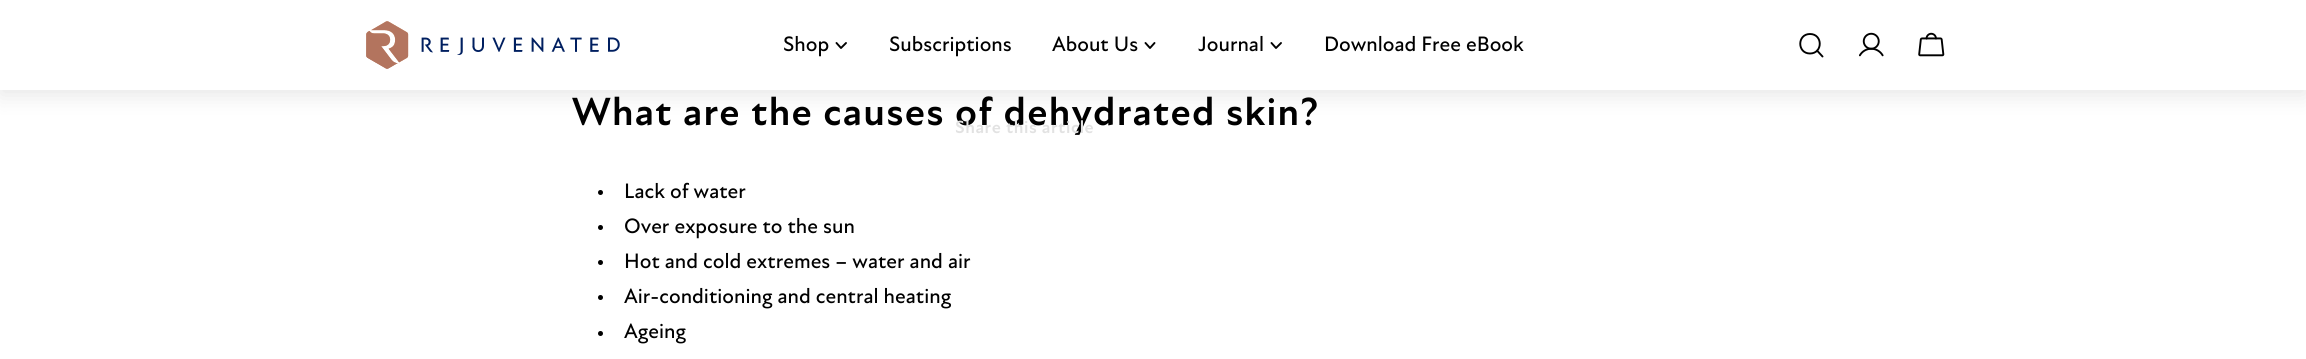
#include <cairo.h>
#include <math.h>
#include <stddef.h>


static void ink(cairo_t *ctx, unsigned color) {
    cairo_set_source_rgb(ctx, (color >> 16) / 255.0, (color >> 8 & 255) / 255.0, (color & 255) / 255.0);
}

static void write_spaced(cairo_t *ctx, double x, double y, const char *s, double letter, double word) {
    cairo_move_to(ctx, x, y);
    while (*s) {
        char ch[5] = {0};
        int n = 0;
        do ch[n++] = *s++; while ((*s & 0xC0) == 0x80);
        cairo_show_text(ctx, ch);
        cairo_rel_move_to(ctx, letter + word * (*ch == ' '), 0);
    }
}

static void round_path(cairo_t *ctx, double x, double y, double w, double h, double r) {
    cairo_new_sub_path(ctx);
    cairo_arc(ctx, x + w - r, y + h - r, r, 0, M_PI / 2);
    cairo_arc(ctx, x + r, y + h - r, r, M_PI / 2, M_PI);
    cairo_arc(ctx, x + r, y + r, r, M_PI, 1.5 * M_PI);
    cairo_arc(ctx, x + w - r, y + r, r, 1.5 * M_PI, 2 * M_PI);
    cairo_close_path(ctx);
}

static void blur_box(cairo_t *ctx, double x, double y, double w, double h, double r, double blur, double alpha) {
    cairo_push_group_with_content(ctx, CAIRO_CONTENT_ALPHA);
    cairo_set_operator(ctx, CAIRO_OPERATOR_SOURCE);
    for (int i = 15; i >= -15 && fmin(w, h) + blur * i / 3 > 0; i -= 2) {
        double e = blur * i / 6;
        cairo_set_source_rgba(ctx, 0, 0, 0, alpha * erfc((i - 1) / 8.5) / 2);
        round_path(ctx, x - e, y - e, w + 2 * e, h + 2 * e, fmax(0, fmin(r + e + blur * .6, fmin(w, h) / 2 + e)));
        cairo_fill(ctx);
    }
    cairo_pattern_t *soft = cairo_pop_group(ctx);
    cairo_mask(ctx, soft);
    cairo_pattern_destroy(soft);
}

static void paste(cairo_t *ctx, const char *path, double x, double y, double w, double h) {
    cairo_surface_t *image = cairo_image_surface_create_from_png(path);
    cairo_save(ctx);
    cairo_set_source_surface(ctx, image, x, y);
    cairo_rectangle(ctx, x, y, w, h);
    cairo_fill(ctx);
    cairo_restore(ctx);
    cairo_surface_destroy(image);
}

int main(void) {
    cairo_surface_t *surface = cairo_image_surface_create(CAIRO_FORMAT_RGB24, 2306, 359);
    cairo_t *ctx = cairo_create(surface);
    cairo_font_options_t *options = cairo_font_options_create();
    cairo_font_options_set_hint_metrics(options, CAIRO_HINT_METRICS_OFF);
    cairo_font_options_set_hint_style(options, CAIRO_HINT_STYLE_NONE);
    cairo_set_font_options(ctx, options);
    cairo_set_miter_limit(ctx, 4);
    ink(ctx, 0xFFFFFF);
    cairo_paint(ctx);
    ink(ctx, 0x000000);
    blur_box(ctx, 0, 5, 2306, 90, 0, 11, 0.1);
    ink(ctx, 0xFFFFFF);
    cairo_rectangle(ctx, 0, 0, 2306, 90);
    cairo_fill(ctx);
    paste(ctx, "media/1.png", 366, 21, 254, 48);
    cairo_select_font_face(ctx, "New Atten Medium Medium", CAIRO_FONT_SLANT_NORMAL, CAIRO_FONT_WEIGHT_NORMAL);
    cairo_set_font_size(ctx, 21.25);
    ink(ctx, 0x000000);
    cairo_move_to(ctx, 783, 51);
    cairo_show_text(ctx, "Shop");
    cairo_new_path(ctx);
    cairo_move_to(ctx, 846, 43);
    cairo_line_to(ctx, 841, 48);
    cairo_line_to(ctx, 836.5, 43);
    cairo_set_line_width(ctx, 1.9);
    cairo_set_line_cap(ctx, CAIRO_LINE_CAP_ROUND);
    cairo_set_line_join(ctx, CAIRO_LINE_JOIN_ROUND);
    cairo_stroke(ctx);
    cairo_move_to(ctx, 889, 51);
    cairo_show_text(ctx, "Subscriptions");
    cairo_move_to(ctx, 1052, 51);
    cairo_show_text(ctx, "About Us");
    cairo_new_path(ctx);
    cairo_move_to(ctx, 1154.5, 43);
    cairo_line_to(ctx, 1150, 48);
    cairo_line_to(ctx, 1145.5, 43);
    cairo_stroke(ctx);
    cairo_move_to(ctx, 1198, 51);
    cairo_show_text(ctx, "Journal");
    cairo_new_path(ctx);
    cairo_move_to(ctx, 1281, 43);
    cairo_line_to(ctx, 1276, 48);
    cairo_line_to(ctx, 1271.5, 43);
    cairo_stroke(ctx);
    cairo_move_to(ctx, 1324, 51);
    cairo_show_text(ctx, "Download Free eBook");
    cairo_new_path(ctx);
    cairo_move_to(ctx, 1810, 53.5);
    cairo_curve_to(ctx, 1823, 53.5, 1823, 34, 1810, 34);
    cairo_curve_to(ctx, 1797, 34, 1797, 53.5, 1810, 53.5);
    cairo_close_path(ctx);
    cairo_move_to(ctx, 1817, 50.5);
    cairo_line_to(ctx, 1822.5, 56.5);
    cairo_stroke(ctx);
    paste(ctx, "media/2.png", 1859, 32, 25, 25);
    paste(ctx, "media/3.png", 1918, 32, 27, 25);
    cairo_select_font_face(ctx, "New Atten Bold", CAIRO_FONT_SLANT_NORMAL, CAIRO_FONT_WEIGHT_BOLD);
    cairo_set_font_size(ctx, 40);
    write_spaced(ctx, 572, 125, "What are the causes of dehydrated skin?", 1.2, 0);
    cairo_new_path(ctx);
    cairo_arc(ctx, 600.5, 192.5, 2.5, 0, 2 * M_PI);
    cairo_fill(ctx);
    cairo_select_font_face(ctx, "New Atten Medium Medium", CAIRO_FONT_SLANT_NORMAL, CAIRO_FONT_WEIGHT_NORMAL);
    cairo_set_font_size(ctx, 21.25);
    cairo_move_to(ctx, 624, 198);
    cairo_show_text(ctx, "Lack of water");
    cairo_new_path(ctx);
    cairo_arc(ctx, 600.5, 227.5, 2.5, 0, 2 * M_PI);
    cairo_fill(ctx);
    cairo_move_to(ctx, 624, 233);
    cairo_show_text(ctx, "Over exposure to the sun");
    cairo_new_path(ctx);
    cairo_arc(ctx, 600.5, 262.5, 2.5, 0, 2 * M_PI);
    cairo_fill(ctx);
    cairo_move_to(ctx, 624, 268);
    cairo_show_text(ctx, "Hot and cold extremes – water and air");
    cairo_new_path(ctx);
    cairo_arc(ctx, 600.5, 297.5, 2.5, 0, 2 * M_PI);
    cairo_fill(ctx);
    cairo_move_to(ctx, 624, 303);
    cairo_show_text(ctx, "Air-conditioning and central heating");
    cairo_new_path(ctx);
    cairo_arc(ctx, 600.5, 333.5, 2.5, 0, 2 * M_PI);
    cairo_fill(ctx);
    cairo_move_to(ctx, 624, 338);
    cairo_show_text(ctx, "Ageing");
    cairo_select_font_face(ctx, "New Atten Bold", CAIRO_FONT_SLANT_NORMAL, CAIRO_FONT_WEIGHT_BOLD);
    cairo_set_font_size(ctx, 18);
    ink(ctx, 0xE2E2E2);
    write_spaced(ctx, 955, 133, "Share this article", 0.5, 0);
    cairo_surface_write_to_png(surface, "image.png");
    cairo_font_options_destroy(options);
    cairo_destroy(ctx);
    cairo_surface_destroy(surface);
    return 0;
}
